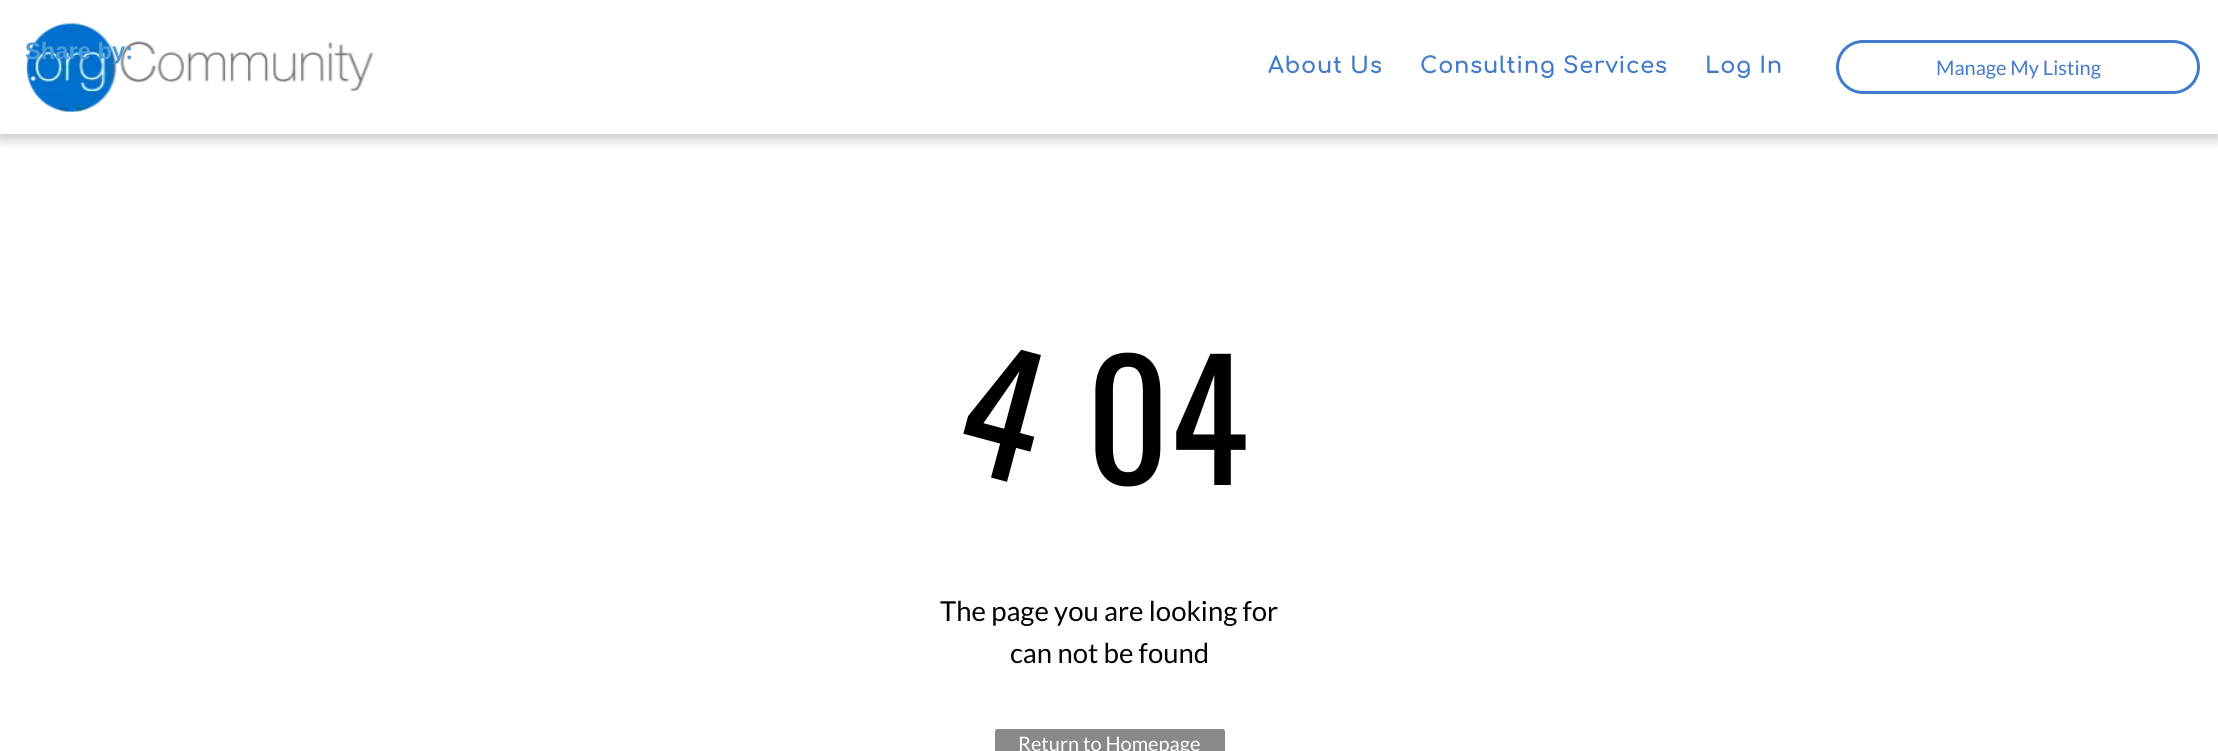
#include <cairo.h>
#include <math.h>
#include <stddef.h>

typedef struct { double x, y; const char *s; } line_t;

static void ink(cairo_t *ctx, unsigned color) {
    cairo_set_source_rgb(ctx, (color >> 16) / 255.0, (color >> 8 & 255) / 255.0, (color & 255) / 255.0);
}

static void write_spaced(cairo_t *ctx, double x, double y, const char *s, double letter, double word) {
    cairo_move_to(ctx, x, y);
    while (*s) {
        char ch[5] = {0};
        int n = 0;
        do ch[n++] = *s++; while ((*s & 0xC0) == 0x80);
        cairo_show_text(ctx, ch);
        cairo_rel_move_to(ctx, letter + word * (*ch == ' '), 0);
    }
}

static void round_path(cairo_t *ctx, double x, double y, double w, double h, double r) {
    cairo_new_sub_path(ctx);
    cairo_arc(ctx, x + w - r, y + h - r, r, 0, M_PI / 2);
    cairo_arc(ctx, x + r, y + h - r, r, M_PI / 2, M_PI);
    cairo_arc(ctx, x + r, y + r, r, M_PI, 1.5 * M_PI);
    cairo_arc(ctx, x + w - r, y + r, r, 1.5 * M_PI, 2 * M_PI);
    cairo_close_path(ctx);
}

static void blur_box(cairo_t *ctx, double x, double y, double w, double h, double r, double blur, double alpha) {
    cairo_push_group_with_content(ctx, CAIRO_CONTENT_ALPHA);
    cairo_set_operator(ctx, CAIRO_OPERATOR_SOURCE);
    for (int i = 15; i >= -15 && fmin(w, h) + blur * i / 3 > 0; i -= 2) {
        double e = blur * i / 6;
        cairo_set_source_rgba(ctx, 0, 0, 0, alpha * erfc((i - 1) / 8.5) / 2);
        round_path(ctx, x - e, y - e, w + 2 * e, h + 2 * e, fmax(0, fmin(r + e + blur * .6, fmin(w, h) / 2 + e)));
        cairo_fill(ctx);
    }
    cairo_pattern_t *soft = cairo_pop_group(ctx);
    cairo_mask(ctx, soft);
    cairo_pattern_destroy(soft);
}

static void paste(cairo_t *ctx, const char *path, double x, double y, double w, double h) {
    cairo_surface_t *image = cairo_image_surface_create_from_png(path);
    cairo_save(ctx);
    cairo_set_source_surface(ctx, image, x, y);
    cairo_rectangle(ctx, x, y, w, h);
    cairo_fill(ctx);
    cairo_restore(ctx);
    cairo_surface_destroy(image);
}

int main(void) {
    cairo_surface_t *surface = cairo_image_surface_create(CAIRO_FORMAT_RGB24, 2218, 751);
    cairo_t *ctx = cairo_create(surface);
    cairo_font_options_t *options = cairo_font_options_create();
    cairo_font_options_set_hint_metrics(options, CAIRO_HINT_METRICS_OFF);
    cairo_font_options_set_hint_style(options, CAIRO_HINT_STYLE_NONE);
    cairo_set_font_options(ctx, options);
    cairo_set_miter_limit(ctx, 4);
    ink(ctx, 0xFFFFFF);
    cairo_paint(ctx);
    ink(ctx, 0x000000);
    blur_box(ctx, 0, 4, 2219, 134, 0, 7, 0.25);
    ink(ctx, 0xFFFFFF);
    cairo_rectangle(ctx, 0, 0, 2218, 134);
    cairo_fill(ctx);
    paste(ctx, "media/1.png", 26, 23, 348, 90);
    cairo_select_font_face(ctx, "Liberation Sans", CAIRO_FONT_SLANT_NORMAL, CAIRO_FONT_WEIGHT_BOLD);
    cairo_set_font_size(ctx, 23.75);
    ink(ctx, 0x4E9BD8);
    cairo_move_to(ctx, 25, 59);
    cairo_show_text(ctx, "Share by:");
    cairo_select_font_face(ctx, "Comfortaa", CAIRO_FONT_SLANT_NORMAL, CAIRO_FONT_WEIGHT_BOLD);
    cairo_set_font_size(ctx, 22.5);
    ink(ctx, 0x417BCB);
    {
        static const line_t items[] = {
            {1268, 73, "About Us"},
            {1420, 73, "Consulting Services"},
            {1705, 73, "Log In"},
        };
        for (size_t i = 0; i < sizeof items / sizeof *items; i++) {
            write_spaced(ctx, items[i].x, items[i].y, items[i].s, 0.7, 0);
        }
    }
    round_path(ctx, 1837.5, 41.5, 361, 51, 25.5);
    cairo_set_line_width(ctx, 3);
    cairo_stroke(ctx);
    cairo_select_font_face(ctx, "Lato", CAIRO_FONT_SLANT_NORMAL, CAIRO_FONT_WEIGHT_NORMAL);
    cairo_set_font_size(ctx, 20);
    cairo_move_to(ctx, 1936, 75);
    cairo_show_text(ctx, "Manage My Listing");
    cairo_select_font_face(ctx, "Oswald", CAIRO_FONT_SLANT_NORMAL, CAIRO_FONT_WEIGHT_NORMAL);
    cairo_set_font_size(ctx, 162);
    ink(ctx, 0x000000);
    cairo_save(ctx);
    cairo_translate(ctx, 948, 466);
    cairo_rotate(ctx, 15 * M_PI / 180);
    cairo_move_to(ctx, 0, 0);
    cairo_show_text(ctx, "4");
    cairo_restore(ctx);
    cairo_move_to(ctx, 1086, 485);
    cairo_show_text(ctx, "04");
    cairo_select_font_face(ctx, "Lato", CAIRO_FONT_SLANT_NORMAL, CAIRO_FONT_WEIGHT_NORMAL);
    cairo_set_font_size(ctx, 27.5);
    cairo_move_to(ctx, 940, 621);
    cairo_show_text(ctx, "The page you are looking for");
    cairo_move_to(ctx, 1010, 663);
    cairo_show_text(ctx, "can not be found");
    ink(ctx, 0x898989);
    round_path(ctx, 995, 729, 230, 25, 2.5);
    cairo_fill(ctx);
    cairo_set_font_size(ctx, 20);
    ink(ctx, 0xFFFFFF);
    cairo_move_to(ctx, 1018, 751);
    cairo_show_text(ctx, "Return to Homepage");
    cairo_surface_write_to_png(surface, "image.png");
    cairo_font_options_destroy(options);
    cairo_destroy(ctx);
    cairo_surface_destroy(surface);
    return 0;
}
